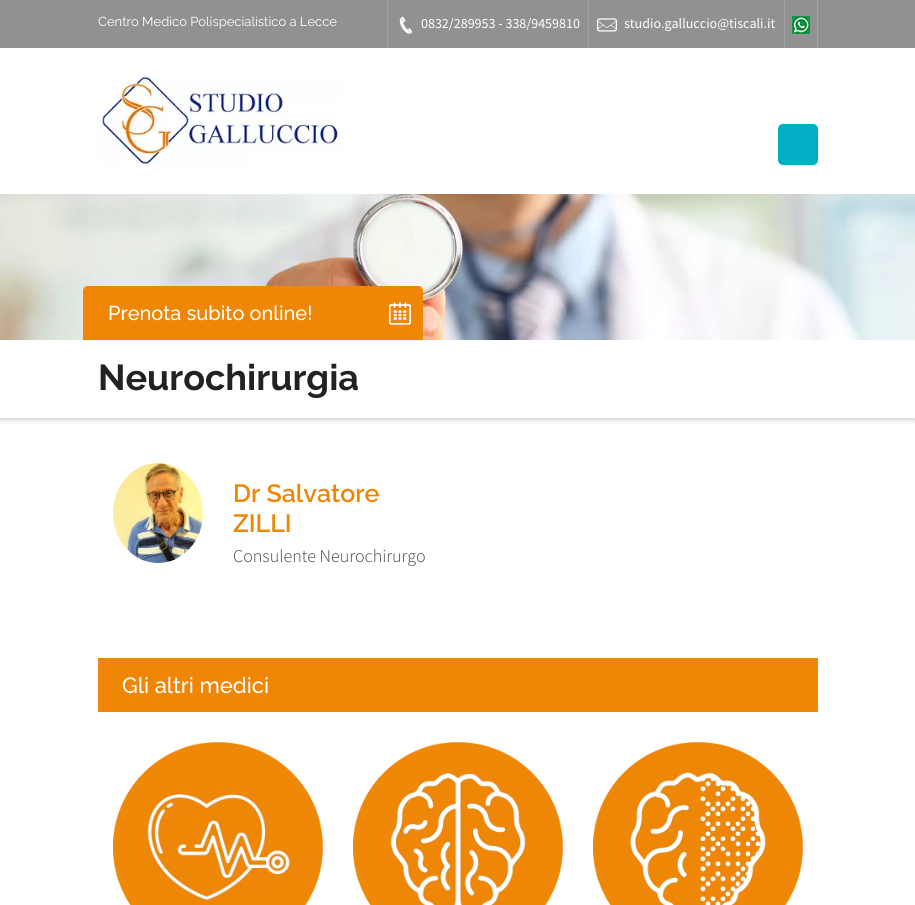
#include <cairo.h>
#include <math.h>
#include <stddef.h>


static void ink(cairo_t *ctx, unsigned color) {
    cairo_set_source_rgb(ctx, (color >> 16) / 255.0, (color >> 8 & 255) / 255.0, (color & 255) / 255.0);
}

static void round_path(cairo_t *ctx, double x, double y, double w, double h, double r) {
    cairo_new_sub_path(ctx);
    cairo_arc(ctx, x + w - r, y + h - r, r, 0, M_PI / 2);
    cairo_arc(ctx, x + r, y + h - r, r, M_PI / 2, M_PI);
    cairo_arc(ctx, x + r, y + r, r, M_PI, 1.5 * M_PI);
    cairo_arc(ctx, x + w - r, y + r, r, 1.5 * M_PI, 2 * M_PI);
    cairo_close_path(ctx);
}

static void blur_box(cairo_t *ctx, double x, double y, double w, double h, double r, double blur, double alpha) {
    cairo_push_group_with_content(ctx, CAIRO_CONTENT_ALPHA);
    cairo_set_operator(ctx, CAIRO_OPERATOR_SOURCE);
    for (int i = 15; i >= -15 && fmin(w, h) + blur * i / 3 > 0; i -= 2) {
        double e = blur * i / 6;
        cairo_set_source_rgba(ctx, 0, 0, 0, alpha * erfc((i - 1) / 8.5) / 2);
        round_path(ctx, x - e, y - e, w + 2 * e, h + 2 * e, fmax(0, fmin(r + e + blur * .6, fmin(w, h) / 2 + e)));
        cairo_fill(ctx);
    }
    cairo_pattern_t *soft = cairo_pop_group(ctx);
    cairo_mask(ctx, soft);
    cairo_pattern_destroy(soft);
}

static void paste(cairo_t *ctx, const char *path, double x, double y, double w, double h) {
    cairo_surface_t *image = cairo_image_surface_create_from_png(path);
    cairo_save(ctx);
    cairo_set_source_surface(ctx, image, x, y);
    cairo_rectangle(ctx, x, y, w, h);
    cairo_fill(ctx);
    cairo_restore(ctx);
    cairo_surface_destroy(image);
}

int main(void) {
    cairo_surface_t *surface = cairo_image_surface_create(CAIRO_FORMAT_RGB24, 915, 905);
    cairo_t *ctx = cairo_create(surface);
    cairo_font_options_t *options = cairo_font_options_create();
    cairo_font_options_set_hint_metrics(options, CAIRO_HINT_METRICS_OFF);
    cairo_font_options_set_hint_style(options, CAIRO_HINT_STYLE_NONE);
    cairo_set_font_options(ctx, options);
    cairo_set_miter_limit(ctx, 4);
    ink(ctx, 0xFFFFFF);
    cairo_paint(ctx);
    ink(ctx, 0x919191);
    cairo_rectangle(ctx, 0, 0, 915, 48);
    cairo_fill(ctx);
    cairo_select_font_face(ctx, "Raleway", CAIRO_FONT_SLANT_NORMAL, CAIRO_FONT_WEIGHT_NORMAL);
    cairo_set_font_size(ctx, 13);
    ink(ctx, 0xFFFFFF);
    cairo_move_to(ctx, 98, 26);
    cairo_show_text(ctx, "Centro Medico Polispecialistico a Lecce");
    ink(ctx, 0x9FA3AA);
    cairo_rectangle(ctx, 387, 1, 1, 47);
    cairo_fill(ctx);
    paste(ctx, "media/1.png", 399, 16, 14, 18);
    cairo_select_font_face(ctx, "Source Sans Pro", CAIRO_FONT_SLANT_NORMAL, CAIRO_FONT_WEIGHT_NORMAL);
    cairo_set_font_size(ctx, 14);
    ink(ctx, 0xFFFFFF);
    cairo_move_to(ctx, 421, 28);
    cairo_show_text(ctx, "0832/289953 - 338/9459810");
    ink(ctx, 0x9FA3AA);
    cairo_rectangle(ctx, 588, 1, 1, 47);
    cairo_fill(ctx);
    paste(ctx, "media/2.png", 597, 18, 20, 14);
    ink(ctx, 0xFFFFFF);
    cairo_move_to(ctx, 624, 28);
    cairo_show_text(ctx, "studio.galluccio@tiscali.it");
    ink(ctx, 0x9FA3AA);
    cairo_rectangle(ctx, 817, 1, 1, 46);
    cairo_fill(ctx);
    cairo_rectangle(ctx, 784, 1, 1, 46);
    cairo_fill(ctx);
    paste(ctx, "media/3.png", 792, 16, 18, 18);
    paste(ctx, "media/4.png", 98, 76, 243, 89);
    ink(ctx, 0x02ADC6);
    round_path(ctx, 778, 124, 40, 41, 5);
    cairo_fill(ctx);
    cairo_save(ctx);
    cairo_rectangle(ctx, 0, 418, 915, 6);
    cairo_clip(ctx);
    ink(ctx, 0x000000);
    blur_box(ctx, 0, 340, 915, 78, 0, 4, 0.32);
    cairo_restore(ctx);
    paste(ctx, "media/5.png", 0, 194, 915, 146);
    ink(ctx, 0xEF8606);
    cairo_new_path(ctx);
    cairo_move_to(ctx, 88, 286);
    cairo_line_to(ctx, 418, 286);
    cairo_curve_to(ctx, 421, 286, 423, 288, 423, 291);
    cairo_line_to(ctx, 423, 340);
    cairo_line_to(ctx, 83, 340);
    cairo_line_to(ctx, 83, 291);
    cairo_curve_to(ctx, 83, 288, 85, 286, 88, 286);
    cairo_close_path(ctx);
    cairo_fill(ctx);
    paste(ctx, "media/6.png", 389, 302, 22, 23);
    cairo_select_font_face(ctx, "Raleway Medium", CAIRO_FONT_SLANT_NORMAL, CAIRO_FONT_WEIGHT_NORMAL);
    cairo_set_font_size(ctx, 20);
    ink(ctx, 0xFFFFFF);
    cairo_move_to(ctx, 108, 320);
    cairo_show_text(ctx, "Prenota subito online!");
    paste(ctx, "media/7.png", 389, 302, 22, 23);
    cairo_select_font_face(ctx, "Raleway", CAIRO_FONT_SLANT_NORMAL, CAIRO_FONT_WEIGHT_BOLD);
    cairo_set_font_size(ctx, 36);
    ink(ctx, 0x222222);
    cairo_move_to(ctx, 98, 390);
    cairo_show_text(ctx, "Neurochirurgia");
    paste(ctx, "media/8.png", 113, 463, 90, 100);
    cairo_select_font_face(ctx, "Raleway SemiBold", CAIRO_FONT_SLANT_NORMAL, CAIRO_FONT_WEIGHT_NORMAL);
    cairo_set_font_size(ctx, 25);
    ink(ctx, 0xEF8606);
    cairo_move_to(ctx, 233, 502);
    cairo_show_text(ctx, "Dr Salvatore");
    cairo_move_to(ctx, 233, 532);
    cairo_show_text(ctx, "ZILLI");
    cairo_select_font_face(ctx, "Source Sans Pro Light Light", CAIRO_FONT_SLANT_NORMAL, CAIRO_FONT_WEIGHT_NORMAL);
    cairo_set_font_size(ctx, 18);
    ink(ctx, 0x444444);
    cairo_move_to(ctx, 233, 562);
    cairo_show_text(ctx, "Consulente Neurochirurgo");
    ink(ctx, 0xEF8606);
    cairo_rectangle(ctx, 98, 658, 720, 54);
    cairo_fill(ctx);
    cairo_select_font_face(ctx, "Raleway Medium", CAIRO_FONT_SLANT_NORMAL, CAIRO_FONT_WEIGHT_NORMAL);
    cairo_set_font_size(ctx, 22);
    ink(ctx, 0xFFFFFF);
    cairo_move_to(ctx, 122, 693);
    cairo_show_text(ctx, "Gli altri medici");
    paste(ctx, "media/9.png", 113, 742, 210, 163);
    paste(ctx, "media/10.png", 353, 742, 210, 163);
    paste(ctx, "media/11.png", 593, 742, 210, 163);
    cairo_surface_write_to_png(surface, "image.png");
    cairo_font_options_destroy(options);
    cairo_destroy(ctx);
    cairo_surface_destroy(surface);
    return 0;
}
